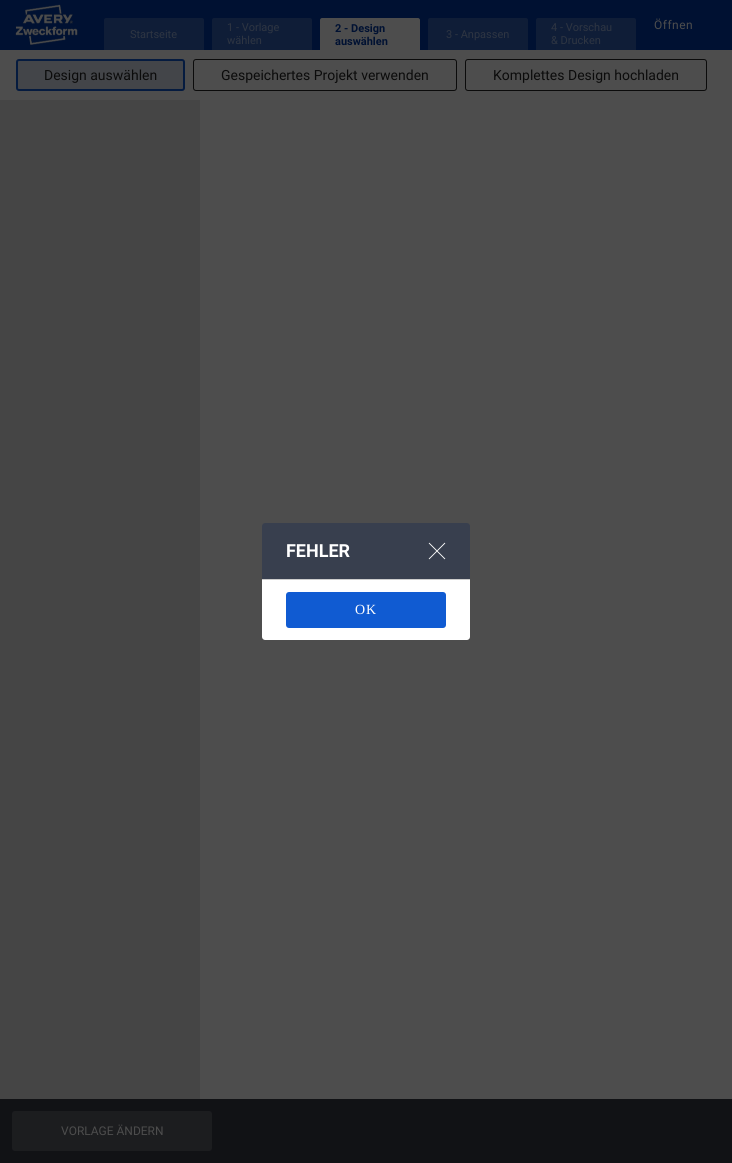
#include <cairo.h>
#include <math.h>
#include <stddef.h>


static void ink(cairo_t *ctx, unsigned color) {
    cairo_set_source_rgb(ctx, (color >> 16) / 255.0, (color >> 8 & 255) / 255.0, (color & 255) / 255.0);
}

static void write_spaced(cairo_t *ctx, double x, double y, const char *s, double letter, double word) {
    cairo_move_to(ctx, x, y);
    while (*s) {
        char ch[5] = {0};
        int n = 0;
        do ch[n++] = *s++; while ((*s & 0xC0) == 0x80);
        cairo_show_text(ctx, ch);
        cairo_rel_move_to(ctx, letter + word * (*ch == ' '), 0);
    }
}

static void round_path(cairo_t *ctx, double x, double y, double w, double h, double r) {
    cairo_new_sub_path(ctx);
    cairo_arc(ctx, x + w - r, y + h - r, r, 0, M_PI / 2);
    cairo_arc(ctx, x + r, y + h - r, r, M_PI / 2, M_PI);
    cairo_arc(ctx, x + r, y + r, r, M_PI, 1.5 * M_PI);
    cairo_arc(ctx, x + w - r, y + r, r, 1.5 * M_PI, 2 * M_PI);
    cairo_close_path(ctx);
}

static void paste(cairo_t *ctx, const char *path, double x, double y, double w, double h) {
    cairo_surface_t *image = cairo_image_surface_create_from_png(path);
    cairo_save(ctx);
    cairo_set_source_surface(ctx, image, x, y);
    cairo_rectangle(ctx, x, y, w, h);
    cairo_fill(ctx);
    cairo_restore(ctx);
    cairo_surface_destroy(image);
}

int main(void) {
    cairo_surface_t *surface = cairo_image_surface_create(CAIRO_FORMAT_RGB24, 732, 1163);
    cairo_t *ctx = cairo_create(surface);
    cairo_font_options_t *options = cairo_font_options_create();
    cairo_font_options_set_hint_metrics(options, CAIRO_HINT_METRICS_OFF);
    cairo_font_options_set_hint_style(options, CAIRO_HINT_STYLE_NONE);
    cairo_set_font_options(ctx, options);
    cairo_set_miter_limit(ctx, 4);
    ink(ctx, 0x4D4D4D);
    cairo_paint(ctx);
    ink(ctx, 0x001132);
    cairo_rectangle(ctx, 0, 0, 732, 50);
    cairo_fill(ctx);
    paste(ctx, "media/1.png", 15, 4, 63, 41);
    ink(ctx, 0x0F1D37);
    cairo_new_path(ctx);
    cairo_move_to(ctx, 106, 18);
    cairo_line_to(ctx, 202, 18);
    cairo_curve_to(ctx, 203, 18, 204, 19, 204, 20);
    cairo_line_to(ctx, 204, 50);
    cairo_line_to(ctx, 104, 50);
    cairo_line_to(ctx, 104, 20);
    cairo_curve_to(ctx, 104, 19, 105, 18, 106, 18);
    cairo_close_path(ctx);
    cairo_fill(ctx);
    cairo_select_font_face(ctx, "Roboto", CAIRO_FONT_SLANT_NORMAL, CAIRO_FONT_WEIGHT_NORMAL);
    cairo_set_font_size(ctx, 11);
    ink(ctx, 0x2E3542);
    cairo_move_to(ctx, 130, 38);
    cairo_show_text(ctx, "Startseite");
    ink(ctx, 0x0F1D37);
    cairo_new_path(ctx);
    cairo_move_to(ctx, 214, 18);
    cairo_line_to(ctx, 310, 18);
    cairo_curve_to(ctx, 311, 18, 312, 19, 312, 20);
    cairo_line_to(ctx, 312, 50);
    cairo_line_to(ctx, 212, 50);
    cairo_line_to(ctx, 212, 20);
    cairo_curve_to(ctx, 212, 19, 213, 18, 214, 18);
    cairo_close_path(ctx);
    cairo_fill(ctx);
    ink(ctx, 0x2E3542);
    cairo_move_to(ctx, 227, 31);
    cairo_show_text(ctx, "1 - Vorlage");
    cairo_move_to(ctx, 227, 44);
    cairo_show_text(ctx, "wählen");
    ink(ctx, 0x4D4D4D);
    cairo_new_path(ctx);
    cairo_move_to(ctx, 322, 18);
    cairo_line_to(ctx, 418, 18);
    cairo_curve_to(ctx, 419, 18, 420, 19, 420, 20);
    cairo_line_to(ctx, 420, 51);
    cairo_line_to(ctx, 320, 51);
    cairo_line_to(ctx, 320, 20);
    cairo_curve_to(ctx, 320, 19, 321, 18, 322, 18);
    cairo_close_path(ctx);
    cairo_fill(ctx);
    cairo_select_font_face(ctx, "Roboto", CAIRO_FONT_SLANT_NORMAL, CAIRO_FONT_WEIGHT_BOLD);
    ink(ctx, 0x001132);
    cairo_move_to(ctx, 335, 32);
    cairo_show_text(ctx, "2 - Design");
    cairo_move_to(ctx, 335, 45);
    cairo_show_text(ctx, "auswählen");
    ink(ctx, 0x0F1D37);
    cairo_new_path(ctx);
    cairo_move_to(ctx, 430, 18);
    cairo_line_to(ctx, 526, 18);
    cairo_curve_to(ctx, 527, 18, 528, 19, 528, 20);
    cairo_line_to(ctx, 528, 50);
    cairo_line_to(ctx, 428, 50);
    cairo_line_to(ctx, 428, 20);
    cairo_curve_to(ctx, 428, 19, 429, 18, 430, 18);
    cairo_close_path(ctx);
    cairo_fill(ctx);
    cairo_select_font_face(ctx, "Roboto", CAIRO_FONT_SLANT_NORMAL, CAIRO_FONT_WEIGHT_NORMAL);
    ink(ctx, 0x2E3542);
    cairo_move_to(ctx, 446, 38);
    cairo_show_text(ctx, "3 - Anpassen");
    ink(ctx, 0x0F1D37);
    cairo_new_path(ctx);
    cairo_move_to(ctx, 538, 18);
    cairo_line_to(ctx, 634, 18);
    cairo_curve_to(ctx, 635, 18, 636, 19, 636, 20);
    cairo_line_to(ctx, 636, 50);
    cairo_line_to(ctx, 536, 50);
    cairo_line_to(ctx, 536, 20);
    cairo_curve_to(ctx, 536, 19, 537, 18, 538, 18);
    cairo_close_path(ctx);
    cairo_fill(ctx);
    ink(ctx, 0x2E3542);
    cairo_move_to(ctx, 551, 31);
    cairo_show_text(ctx, "4 - Vorschau");
    cairo_move_to(ctx, 551, 44);
    cairo_show_text(ctx, "& Drucken");
    cairo_set_font_size(ctx, 12);
    ink(ctx, 0x4D4D4D);
    write_spaced(ctx, 654, 29, "Öffnen", 0.5, 0);
    ink(ctx, 0x434549);
    round_path(ctx, 16, 59, 169, 32, 3);
    cairo_fill(ctx);
    round_path(ctx, 17, 60, 167, 30, 2);
    ink(ctx, 0x051B3F);
    cairo_stroke(ctx);
    cairo_set_font_size(ctx, 14);
    ink(ctx, 0x0B0B0B);
    cairo_move_to(ctx, 44, 80);
    cairo_show_text(ctx, "Design auswählen");
    round_path(ctx, 193.5, 59.5, 263, 31, 2.5);
    cairo_set_line_width(ctx, 1);
    cairo_stroke(ctx);
    cairo_move_to(ctx, 221, 80);
    cairo_show_text(ctx, "Gespeichertes Projekt verwenden");
    round_path(ctx, 465.5, 59.5, 241, 31, 2.5);
    cairo_stroke(ctx);
    cairo_move_to(ctx, 493, 80);
    cairo_show_text(ctx, "Komplettes Design hochladen");
    ink(ctx, 0x454545);
    cairo_rectangle(ctx, 0, 100, 200, 999);
    cairo_fill(ctx);
    ink(ctx, 0x111215);
    cairo_rectangle(ctx, 0, 1099, 732, 64);
    cairo_fill(ctx);
    ink(ctx, 0x1C1D1F);
    round_path(ctx, 12, 1111, 200, 40, 3);
    cairo_fill(ctx);
    cairo_set_font_size(ctx, 12);
    ink(ctx, 0x4D4D4D);
    cairo_move_to(ctx, 61, 1135);
    cairo_show_text(ctx, "VORLAGE ÄNDERN");
    ink(ctx, 0x383F4E);
    cairo_new_path(ctx);
    cairo_move_to(ctx, 265, 523);
    cairo_line_to(ctx, 467, 523);
    cairo_curve_to(ctx, 468.5, 523, 470, 524.5, 470, 526);
    cairo_line_to(ctx, 470, 579);
    cairo_line_to(ctx, 262, 579);
    cairo_line_to(ctx, 262, 526);
    cairo_curve_to(ctx, 262, 524.5, 263.5, 523, 265, 523);
    cairo_close_path(ctx);
    cairo_fill(ctx);
    cairo_select_font_face(ctx, "Roboto", CAIRO_FONT_SLANT_NORMAL, CAIRO_FONT_WEIGHT_BOLD);
    cairo_set_font_size(ctx, 18);
    ink(ctx, 0xFFFFFF);
    cairo_move_to(ctx, 286, 557);
    cairo_show_text(ctx, "FEHLER");
    cairo_new_path(ctx);
    cairo_move_to(ctx, 429, 543);
    cairo_line_to(ctx, 445, 559);
    cairo_move_to(ctx, 445, 543);
    cairo_line_to(ctx, 429, 559);
    cairo_set_line_width(ctx, 0.9);
    cairo_stroke(ctx);
    cairo_new_path(ctx);
    cairo_move_to(ctx, 262, 579);
    cairo_line_to(ctx, 470, 579);
    cairo_line_to(ctx, 470, 637);
    cairo_curve_to(ctx, 470, 638.5, 468.5, 640, 467, 640);
    cairo_line_to(ctx, 265, 640);
    cairo_curve_to(ctx, 263.5, 640, 262, 638.5, 262, 637);
    cairo_close_path(ctx);
    cairo_fill(ctx);
    ink(ctx, 0xCCCCCC);
    cairo_rectangle(ctx, 262, 579, 208, 1);
    cairo_fill(ctx);
    ink(ctx, 0x105BD2);
    round_path(ctx, 286, 592, 160, 36, 3);
    cairo_fill(ctx);
    cairo_select_font_face(ctx, "Liberation Serif", CAIRO_FONT_SLANT_NORMAL, CAIRO_FONT_WEIGHT_NORMAL);
    cairo_set_font_size(ctx, 14);
    ink(ctx, 0xFFFFFF);
    write_spaced(ctx, 355, 614, "OK", 1, 0);
    cairo_surface_write_to_png(surface, "image.png");
    cairo_font_options_destroy(options);
    cairo_destroy(ctx);
    cairo_surface_destroy(surface);
    return 0;
}
